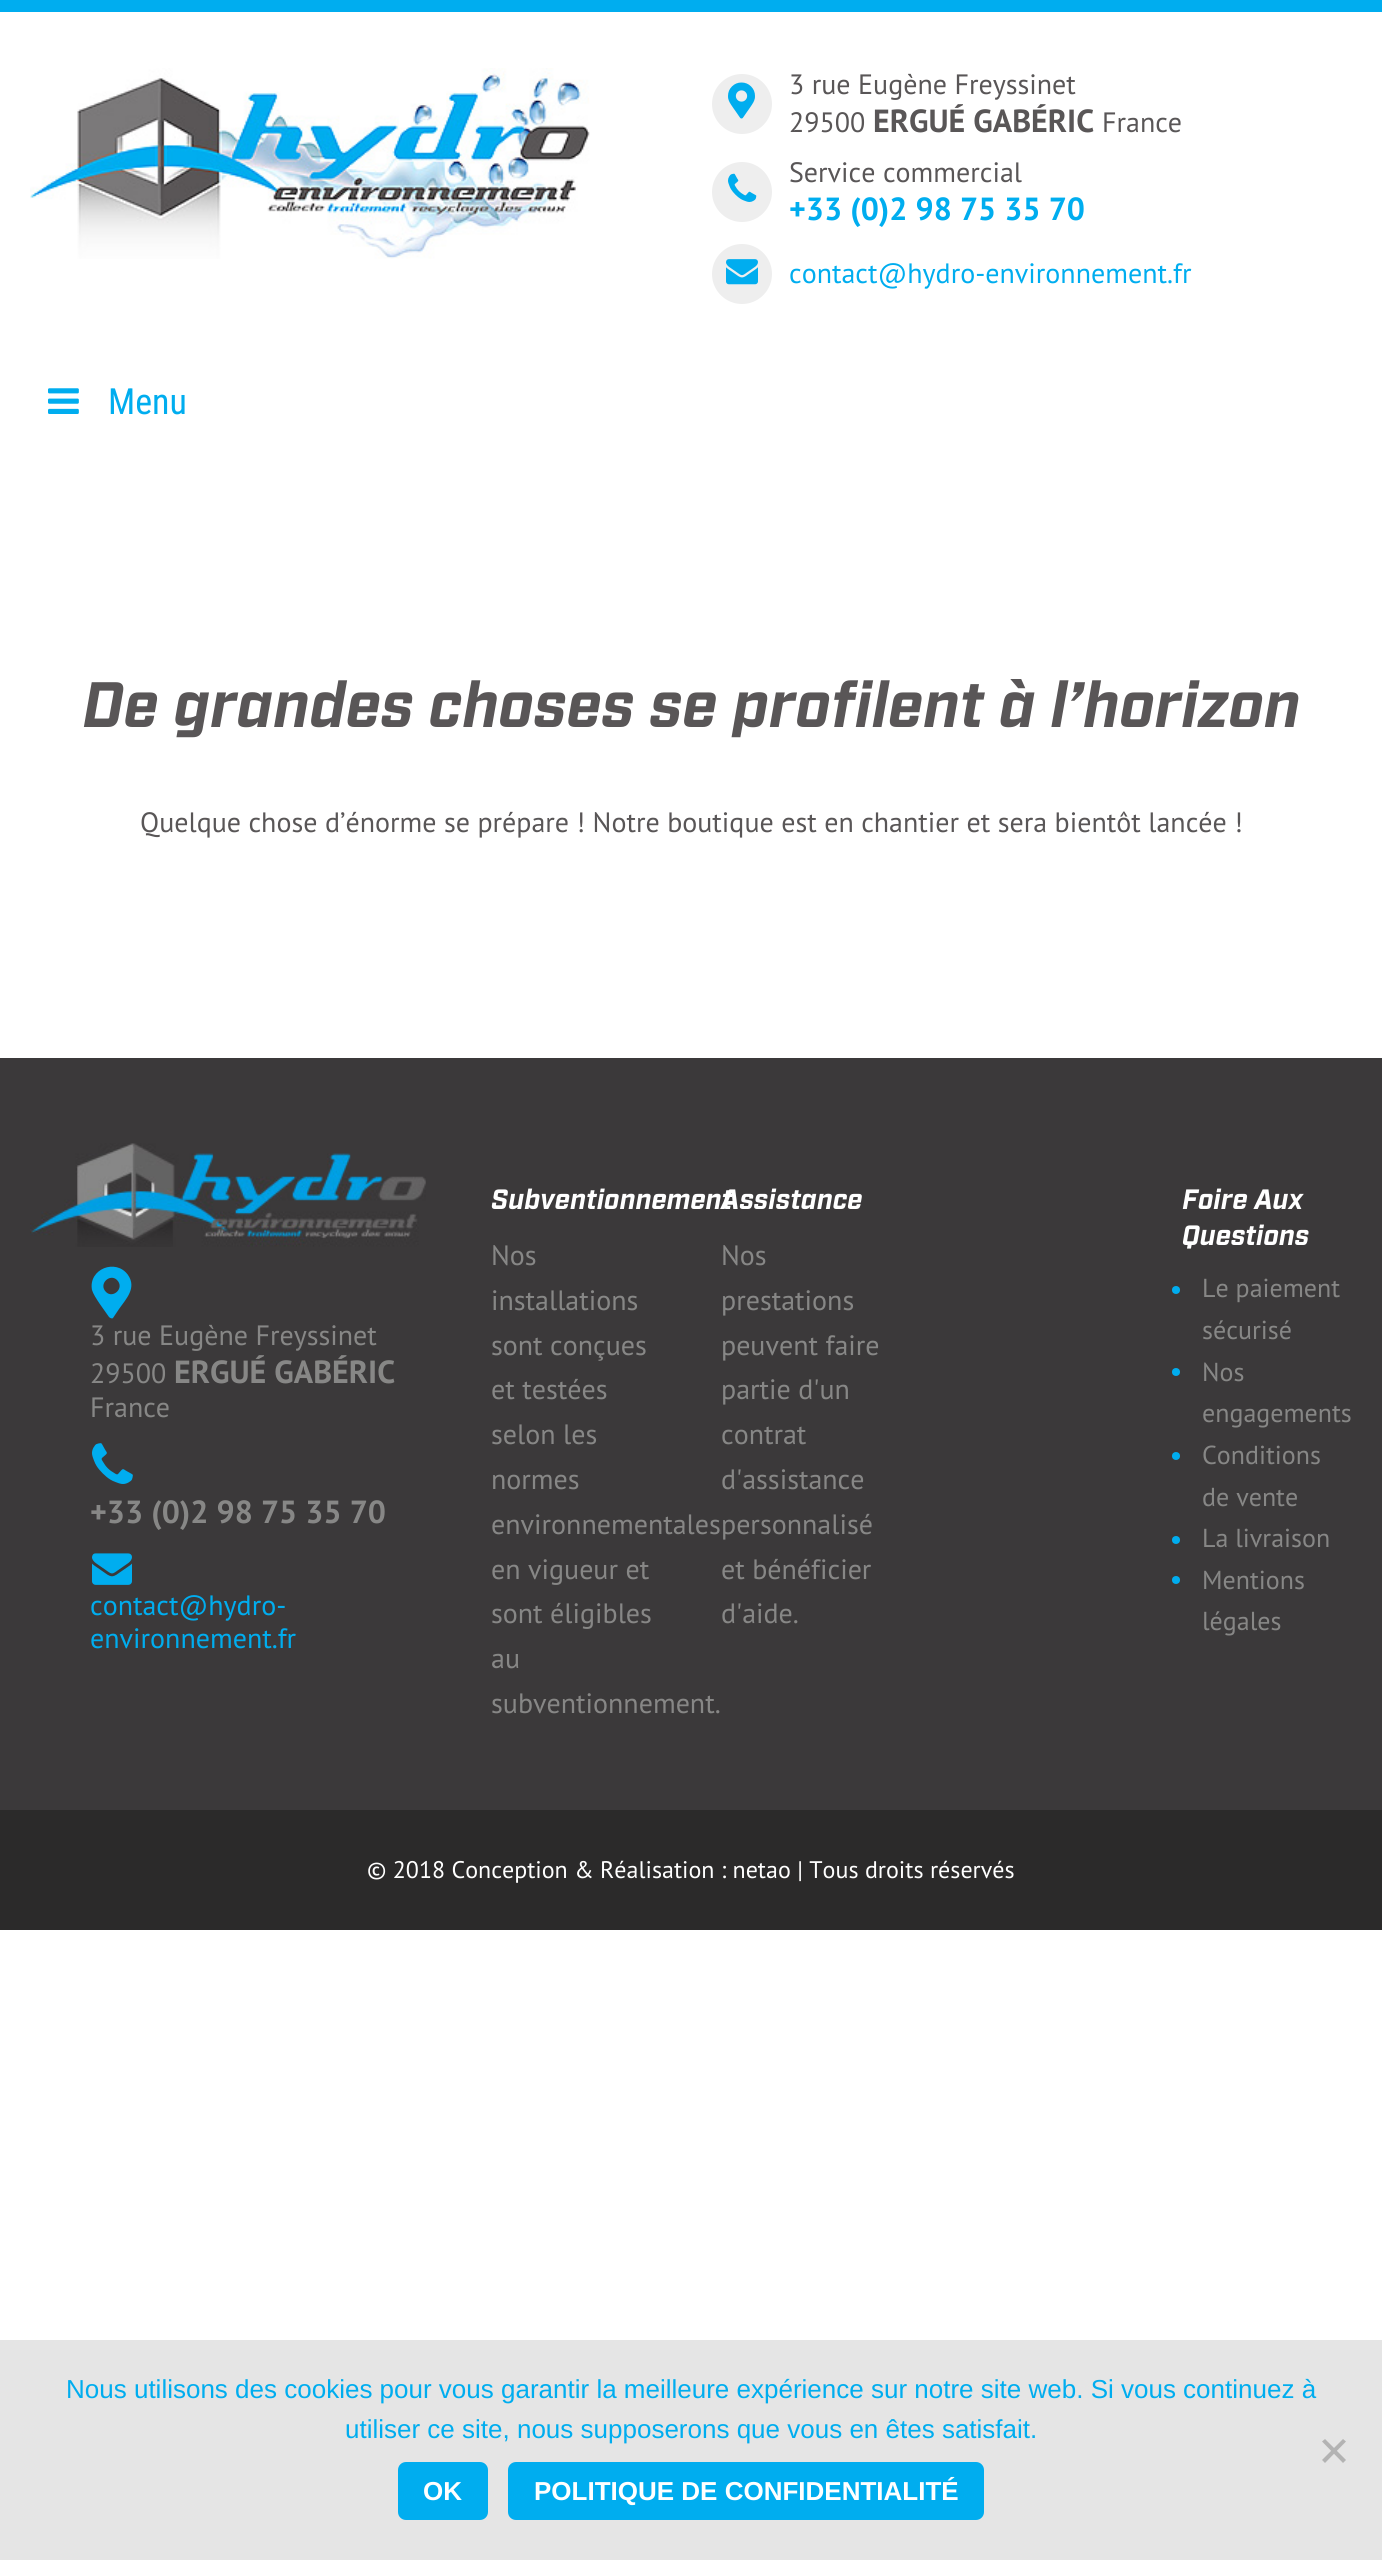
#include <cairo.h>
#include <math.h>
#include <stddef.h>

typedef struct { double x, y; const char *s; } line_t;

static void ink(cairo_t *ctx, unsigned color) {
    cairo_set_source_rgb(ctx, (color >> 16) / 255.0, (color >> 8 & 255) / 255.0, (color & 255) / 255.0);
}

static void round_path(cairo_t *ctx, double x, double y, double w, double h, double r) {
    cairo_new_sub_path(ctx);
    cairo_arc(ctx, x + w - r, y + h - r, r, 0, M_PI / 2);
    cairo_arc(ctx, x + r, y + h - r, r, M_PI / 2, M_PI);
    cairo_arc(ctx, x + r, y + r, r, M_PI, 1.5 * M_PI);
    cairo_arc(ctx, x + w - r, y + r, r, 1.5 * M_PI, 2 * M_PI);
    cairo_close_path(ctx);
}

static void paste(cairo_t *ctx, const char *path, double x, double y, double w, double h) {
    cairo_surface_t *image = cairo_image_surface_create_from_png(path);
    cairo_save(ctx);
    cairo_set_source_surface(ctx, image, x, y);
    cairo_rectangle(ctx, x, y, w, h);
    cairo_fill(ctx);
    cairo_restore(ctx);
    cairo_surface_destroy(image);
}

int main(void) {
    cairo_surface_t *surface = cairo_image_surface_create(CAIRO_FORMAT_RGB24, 1382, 2560);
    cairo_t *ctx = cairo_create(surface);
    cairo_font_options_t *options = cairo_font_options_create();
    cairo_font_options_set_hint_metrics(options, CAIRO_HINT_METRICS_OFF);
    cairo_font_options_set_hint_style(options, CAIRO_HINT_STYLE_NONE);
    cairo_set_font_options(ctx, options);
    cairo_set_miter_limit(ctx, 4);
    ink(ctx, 0xFFFFFF);
    cairo_paint(ctx);
    ink(ctx, 0x00ADEF);
    cairo_rectangle(ctx, 0, 0, 1382, 12);
    cairo_fill(ctx);
    paste(ctx, "media/1.png", 30, 68, 560, 191);
    ink(ctx, 0xEEEEEE);
    cairo_arc(ctx, 742, 104, 30, 0, 2 * M_PI);
    cairo_fill(ctx);
    paste(ctx, "media/2.png", 728, 82, 27, 37);
    cairo_select_font_face(ctx, "PT Sans", CAIRO_FONT_SLANT_NORMAL, CAIRO_FONT_WEIGHT_NORMAL);
    cairo_set_font_size(ctx, 28);
    ink(ctx, 0x595657);
    cairo_move_to(ctx, 789, 94);
    cairo_show_text(ctx, "3 rue Eugène Freyssinet");
    cairo_move_to(ctx, 789, 132);
    cairo_show_text(ctx, "29500");
    cairo_select_font_face(ctx, "PT Sans", CAIRO_FONT_SLANT_NORMAL, CAIRO_FONT_WEIGHT_BOLD);
    cairo_set_font_size(ctx, 32);
    cairo_move_to(ctx, 873, 132);
    cairo_show_text(ctx, "ERGUÉ GABÉRIC");
    cairo_select_font_face(ctx, "PT Sans", CAIRO_FONT_SLANT_NORMAL, CAIRO_FONT_WEIGHT_NORMAL);
    cairo_set_font_size(ctx, 28);
    cairo_move_to(ctx, 1102, 132);
    cairo_show_text(ctx, "France");
    ink(ctx, 0xEEEEEE);
    cairo_new_path(ctx);
    cairo_arc(ctx, 742, 192, 30, 0, 2 * M_PI);
    cairo_fill(ctx);
    paste(ctx, "media/3.png", 728, 173, 29, 29);
    ink(ctx, 0x595657);
    cairo_move_to(ctx, 789, 182);
    cairo_show_text(ctx, "Service commercial");
    cairo_select_font_face(ctx, "PT Sans", CAIRO_FONT_SLANT_NORMAL, CAIRO_FONT_WEIGHT_BOLD);
    cairo_set_font_size(ctx, 32);
    ink(ctx, 0x00ADEF);
    cairo_move_to(ctx, 789, 220);
    cairo_show_text(ctx, "+33 (0)2 98 75 35 70");
    ink(ctx, 0xEEEEEE);
    cairo_new_path(ctx);
    cairo_arc(ctx, 742, 274, 30, 0, 2 * M_PI);
    cairo_fill(ctx);
    paste(ctx, "media/4.png", 726, 259, 32, 26);
    cairo_select_font_face(ctx, "PT Sans", CAIRO_FONT_SLANT_NORMAL, CAIRO_FONT_WEIGHT_NORMAL);
    cairo_set_font_size(ctx, 28);
    ink(ctx, 0x00ADEF);
    cairo_move_to(ctx, 789, 283);
    cairo_show_text(ctx, "contact@hydro-environnement.fr");
    paste(ctx, "media/5.png", 48, 388, 31, 26);
    cairo_select_font_face(ctx, "Roboto Condensed", CAIRO_FONT_SLANT_NORMAL, CAIRO_FONT_WEIGHT_NORMAL);
    cairo_set_font_size(ctx, 36);
    cairo_move_to(ctx, 108, 414);
    cairo_show_text(ctx, "Menu");
    cairo_select_font_face(ctx, "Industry", CAIRO_FONT_SLANT_ITALIC, CAIRO_FONT_WEIGHT_BOLD);
    cairo_set_font_size(ctx, 64);
    ink(ctx, 0x595657);
    cairo_move_to(ctx, 82, 727);
    cairo_show_text(ctx, "De grandes choses se profilent à l’horizon");
    cairo_select_font_face(ctx, "PT Sans", CAIRO_FONT_SLANT_NORMAL, CAIRO_FONT_WEIGHT_NORMAL);
    cairo_set_font_size(ctx, 28);
    cairo_move_to(ctx, 140, 832);
    cairo_show_text(ctx, "Quelque chose d’énorme se prépare ! Notre boutique est en chantier et sera bientôt lancée !");
    ink(ctx, 0x3B393A);
    cairo_rectangle(ctx, 0, 1058, 1382, 752);
    cairo_fill(ctx);
    paste(ctx, "media/6.png", 30, 1143, 396, 104);
    ink(ctx, 0x00ADEF);
    cairo_new_path(ctx);
    cairo_move_to(ctx, 109, 1317);
    cairo_curve_to(ctx, 105, 1311, 94, 1297, 92, 1290);
    cairo_curve_to(ctx, 88, 1269, 116, 1258, 128, 1275);
    cairo_curve_to(ctx, 137, 1288, 126, 1299, 119, 1309);
    cairo_line_to(ctx, 113, 1318);
    cairo_curve_to(ctx, 112, 1319, 110, 1318, 109, 1317);
    cairo_close_path(ctx);
    cairo_move_to(ctx, 106, 1292);
    cairo_curve_to(ctx, 113, 1299, 125, 1288, 117, 1280);
    cairo_curve_to(ctx, 110, 1273, 98, 1284, 106, 1292);
    cairo_close_path(ctx);
    cairo_fill(ctx);
    ink(ctx, 0x878786);
    cairo_move_to(ctx, 90, 1345);
    cairo_show_text(ctx, "3 rue Eugène Freyssinet");
    cairo_move_to(ctx, 90, 1383);
    cairo_show_text(ctx, "29500");
    cairo_select_font_face(ctx, "PT Sans", CAIRO_FONT_SLANT_NORMAL, CAIRO_FONT_WEIGHT_BOLD);
    cairo_set_font_size(ctx, 32);
    cairo_move_to(ctx, 174, 1383);
    cairo_show_text(ctx, "ERGUÉ GABÉRIC");
    cairo_select_font_face(ctx, "PT Sans", CAIRO_FONT_SLANT_NORMAL, CAIRO_FONT_WEIGHT_NORMAL);
    cairo_set_font_size(ctx, 28);
    cairo_move_to(ctx, 90, 1417);
    cairo_show_text(ctx, "France");
    paste(ctx, "media/7.png", 92, 1443, 41, 41);
    cairo_select_font_face(ctx, "PT Sans", CAIRO_FONT_SLANT_NORMAL, CAIRO_FONT_WEIGHT_BOLD);
    cairo_set_font_size(ctx, 32);
    cairo_move_to(ctx, 90, 1523);
    cairo_show_text(ctx, "+33 (0)2 98 75 35 70");
    paste(ctx, "media/8.png", 92, 1553, 40, 32);
    cairo_select_font_face(ctx, "PT Sans", CAIRO_FONT_SLANT_NORMAL, CAIRO_FONT_WEIGHT_NORMAL);
    cairo_set_font_size(ctx, 28);
    ink(ctx, 0x00ADEF);
    cairo_move_to(ctx, 90, 1615);
    cairo_show_text(ctx, "contact@hydro-");
    cairo_move_to(ctx, 90, 1648);
    cairo_show_text(ctx, "environnement.fr");
    cairo_select_font_face(ctx, "Industry", CAIRO_FONT_SLANT_ITALIC, CAIRO_FONT_WEIGHT_BOLD);
    ink(ctx, 0xFFFFFF);
    cairo_move_to(ctx, 491, 1209);
    cairo_show_text(ctx, "Subventionnement");
    cairo_select_font_face(ctx, "PT Sans", CAIRO_FONT_SLANT_NORMAL, CAIRO_FONT_WEIGHT_NORMAL);
    ink(ctx, 0x878786);
    {
        static const line_t items[] = {
            {491, 1265, "Nos"},
            {491, 1310, "installations"},
            {491, 1355, "sont conçues"},
            {491, 1399, "et testées"},
            {491, 1444, "selon les"},
            {491, 1489, "normes"},
            {491, 1534, "environnementales"},
            {491, 1579, "en vigueur et"},
            {491, 1623, "sont éligibles"},
            {491, 1668, "au"},
            {491, 1713, "subventionnement."},
        };
        for (size_t i = 0; i < sizeof items / sizeof *items; i++) {
            cairo_move_to(ctx, items[i].x, items[i].y);
            cairo_show_text(ctx, items[i].s);
        }
    }
    cairo_select_font_face(ctx, "Industry", CAIRO_FONT_SLANT_ITALIC, CAIRO_FONT_WEIGHT_BOLD);
    ink(ctx, 0xFFFFFF);
    cairo_move_to(ctx, 721, 1209);
    cairo_show_text(ctx, "Assistance");
    cairo_select_font_face(ctx, "PT Sans", CAIRO_FONT_SLANT_NORMAL, CAIRO_FONT_WEIGHT_NORMAL);
    ink(ctx, 0x878786);
    {
        static const line_t items[] = {
            {721, 1265, "Nos"},
            {721, 1310, "prestations"},
            {721, 1355, "peuvent faire"},
            {721, 1399, "partie d'un"},
            {721, 1444, "contrat"},
            {721, 1489, "d'assistance"},
            {721, 1534, "personnalisé"},
            {721, 1579, "et bénéficier"},
            {721, 1623, "d'aide."},
        };
        for (size_t i = 0; i < sizeof items / sizeof *items; i++) {
            cairo_move_to(ctx, items[i].x, items[i].y);
            cairo_show_text(ctx, items[i].s);
        }
    }
    cairo_select_font_face(ctx, "Industry", CAIRO_FONT_SLANT_ITALIC, CAIRO_FONT_WEIGHT_BOLD);
    ink(ctx, 0xFFFFFF);
    cairo_move_to(ctx, 1182, 1209);
    cairo_show_text(ctx, "Foire Aux");
    cairo_move_to(ctx, 1182, 1245);
    cairo_show_text(ctx, "Questions");
    ink(ctx, 0x00ADEF);
    cairo_new_path(ctx);
    cairo_arc(ctx, 1176, 1290, 4, 0, 2 * M_PI);
    cairo_fill(ctx);
    cairo_select_font_face(ctx, "PT Sans", CAIRO_FONT_SLANT_NORMAL, CAIRO_FONT_WEIGHT_NORMAL);
    cairo_set_font_size(ctx, 26);
    ink(ctx, 0x878786);
    cairo_move_to(ctx, 1202, 1297);
    cairo_show_text(ctx, "Le paiement");
    cairo_move_to(ctx, 1202, 1339);
    cairo_show_text(ctx, "sécurisé");
    ink(ctx, 0x00ADEF);
    cairo_new_path(ctx);
    cairo_arc(ctx, 1176, 1372, 4, 0, 2 * M_PI);
    cairo_fill(ctx);
    ink(ctx, 0x878786);
    cairo_move_to(ctx, 1202, 1381);
    cairo_show_text(ctx, "Nos");
    cairo_move_to(ctx, 1202, 1422);
    cairo_show_text(ctx, "engagements");
    ink(ctx, 0x00ADEF);
    cairo_new_path(ctx);
    cairo_arc(ctx, 1176, 1456, 4, 0, 2 * M_PI);
    cairo_fill(ctx);
    ink(ctx, 0x878786);
    cairo_move_to(ctx, 1202, 1464);
    cairo_show_text(ctx, "Conditions");
    cairo_move_to(ctx, 1202, 1506);
    cairo_show_text(ctx, "de vente");
    ink(ctx, 0x00ADEF);
    cairo_new_path(ctx);
    cairo_arc(ctx, 1176, 1540, 4, 0, 2 * M_PI);
    cairo_fill(ctx);
    ink(ctx, 0x878786);
    cairo_move_to(ctx, 1202, 1547);
    cairo_show_text(ctx, "La livraison");
    ink(ctx, 0x00ADEF);
    cairo_new_path(ctx);
    cairo_arc(ctx, 1176, 1580, 4, 0, 2 * M_PI);
    cairo_fill(ctx);
    ink(ctx, 0x878786);
    cairo_move_to(ctx, 1202, 1589);
    cairo_show_text(ctx, "Mentions");
    cairo_move_to(ctx, 1202, 1630);
    cairo_show_text(ctx, "légales");
    ink(ctx, 0x2B2A2A);
    cairo_rectangle(ctx, 0, 1810, 1382, 120);
    cairo_fill(ctx);
    cairo_set_font_size(ctx, 24);
    ink(ctx, 0xFFFFFF);
    cairo_move_to(ctx, 367, 1878);
    cairo_show_text(ctx, "© 2018 Conception & Réalisation : netao | Tous droits réservés");
    ink(ctx, 0xE5E5E5);
    cairo_rectangle(ctx, 0, 2340, 1382, 220);
    cairo_fill(ctx);
    cairo_select_font_face(ctx, "Liberation Sans", CAIRO_FONT_SLANT_NORMAL, CAIRO_FONT_WEIGHT_NORMAL);
    cairo_set_font_size(ctx, 26);
    ink(ctx, 0x00ADEF);
    cairo_move_to(ctx, 66, 2398);
    cairo_show_text(ctx, "Nous utilisons des cookies pour vous garantir la meilleure expérience sur notre site web. Si vous continuez à");
    cairo_move_to(ctx, 345, 2438);
    cairo_show_text(ctx, "utiliser ce site, nous supposerons que vous en êtes satisfait.");
    ink(ctx, 0xB3B3B3);
    cairo_new_path(ctx);
    cairo_move_to(ctx, 1343, 2439);
    cairo_line_to(ctx, 1346, 2441.5);
    cairo_line_to(ctx, 1325, 2463);
    cairo_line_to(ctx, 1322, 2460);
    cairo_close_path(ctx);
    cairo_fill(ctx);
    cairo_new_path(ctx);
    cairo_move_to(ctx, 1322, 2441.5);
    cairo_line_to(ctx, 1325, 2439);
    cairo_line_to(ctx, 1346, 2460);
    cairo_line_to(ctx, 1343, 2463);
    cairo_close_path(ctx);
    cairo_fill(ctx);
    ink(ctx, 0x00ADEF);
    round_path(ctx, 398, 2462, 90, 58, 8);
    cairo_fill(ctx);
    cairo_select_font_face(ctx, "Liberation Sans", CAIRO_FONT_SLANT_NORMAL, CAIRO_FONT_WEIGHT_BOLD);
    ink(ctx, 0xFFFFFF);
    cairo_move_to(ctx, 423, 2500);
    cairo_show_text(ctx, "OK");
    ink(ctx, 0x00ADEF);
    round_path(ctx, 508, 2462, 476, 58, 8);
    cairo_fill(ctx);
    ink(ctx, 0xFFFFFF);
    cairo_move_to(ctx, 534, 2500);
    cairo_show_text(ctx, "POLITIQUE DE CONFIDENTIALITÉ");
    cairo_surface_write_to_png(surface, "image.png");
    cairo_font_options_destroy(options);
    cairo_destroy(ctx);
    cairo_surface_destroy(surface);
    return 0;
}
